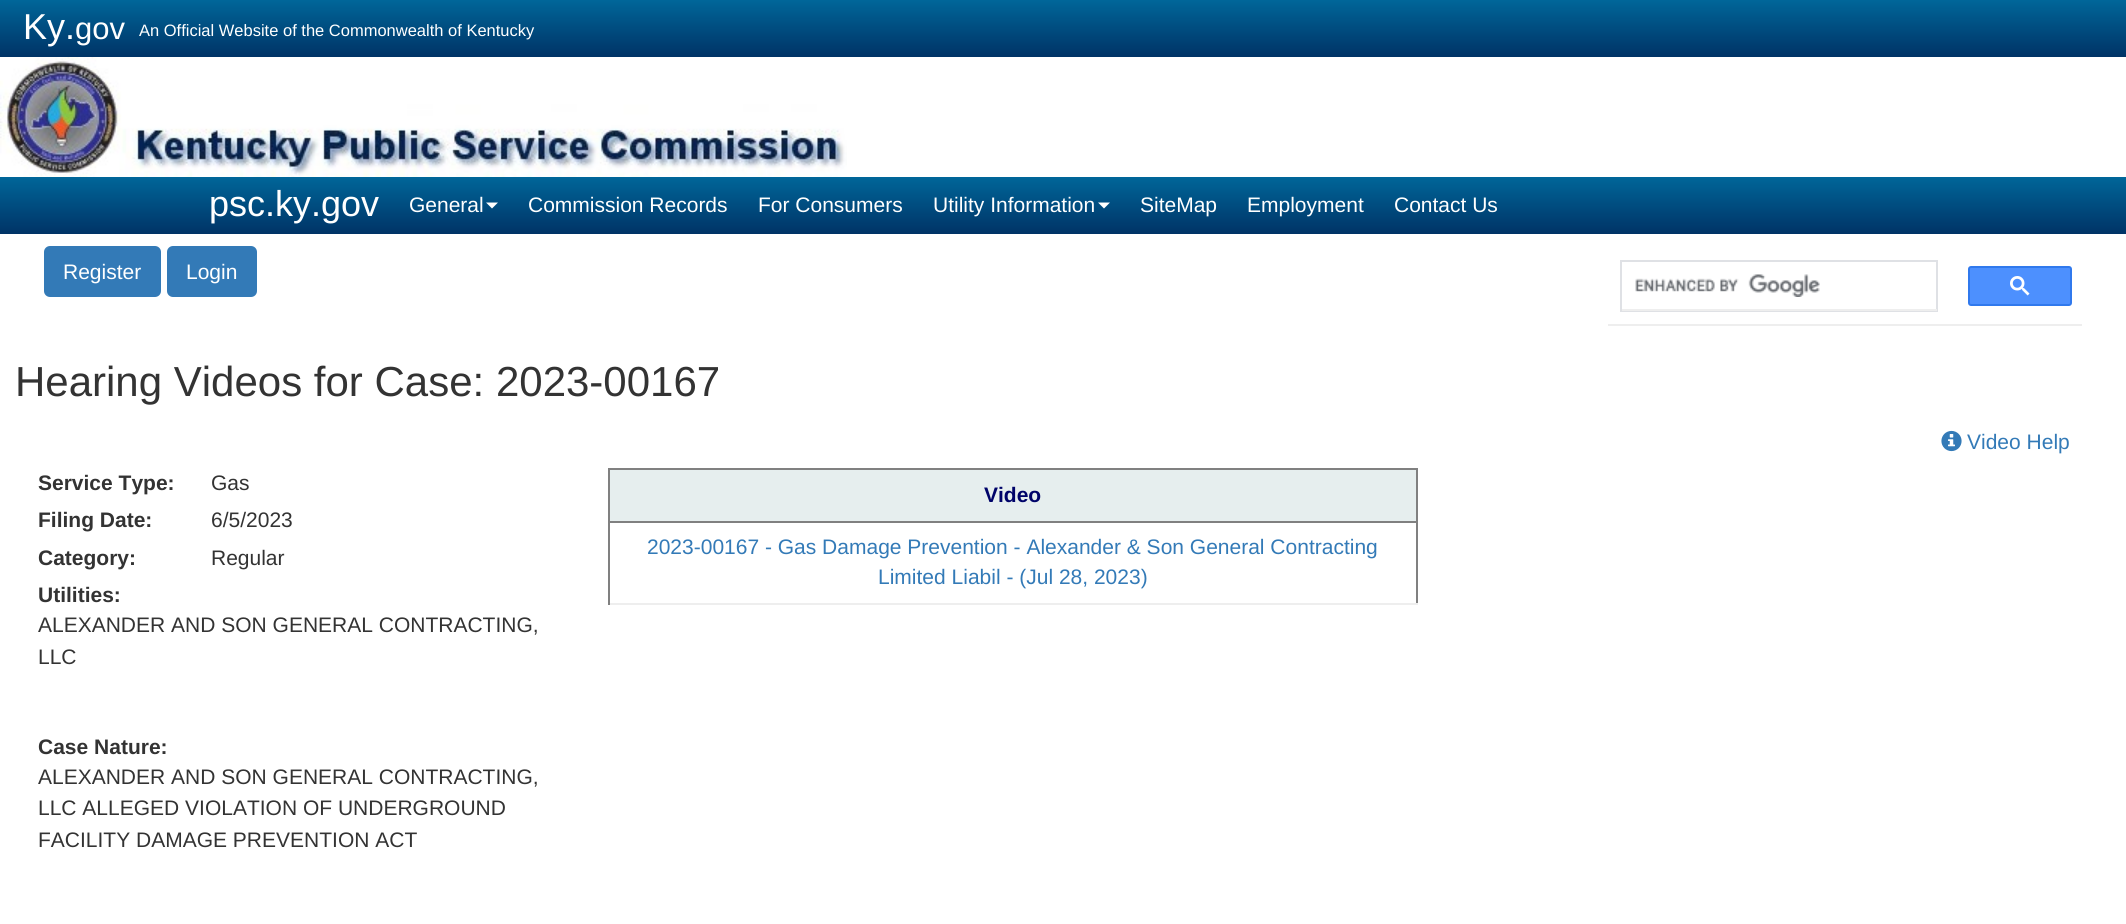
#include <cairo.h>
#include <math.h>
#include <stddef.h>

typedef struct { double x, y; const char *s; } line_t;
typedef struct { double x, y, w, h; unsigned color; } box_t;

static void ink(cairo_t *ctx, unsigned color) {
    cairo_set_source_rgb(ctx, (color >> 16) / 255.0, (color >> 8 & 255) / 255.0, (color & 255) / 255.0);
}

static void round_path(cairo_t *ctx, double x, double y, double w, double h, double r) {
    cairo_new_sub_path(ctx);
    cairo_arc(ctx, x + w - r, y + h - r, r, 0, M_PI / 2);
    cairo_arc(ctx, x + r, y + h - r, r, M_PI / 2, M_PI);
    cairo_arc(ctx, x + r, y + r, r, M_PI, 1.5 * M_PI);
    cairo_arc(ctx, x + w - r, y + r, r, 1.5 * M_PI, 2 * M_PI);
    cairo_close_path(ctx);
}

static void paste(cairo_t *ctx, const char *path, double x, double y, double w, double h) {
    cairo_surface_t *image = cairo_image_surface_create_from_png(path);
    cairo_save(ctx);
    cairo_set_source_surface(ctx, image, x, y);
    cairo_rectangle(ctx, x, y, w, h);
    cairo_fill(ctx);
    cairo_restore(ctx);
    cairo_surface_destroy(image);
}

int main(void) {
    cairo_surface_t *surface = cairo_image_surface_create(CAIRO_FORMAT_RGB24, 2126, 924);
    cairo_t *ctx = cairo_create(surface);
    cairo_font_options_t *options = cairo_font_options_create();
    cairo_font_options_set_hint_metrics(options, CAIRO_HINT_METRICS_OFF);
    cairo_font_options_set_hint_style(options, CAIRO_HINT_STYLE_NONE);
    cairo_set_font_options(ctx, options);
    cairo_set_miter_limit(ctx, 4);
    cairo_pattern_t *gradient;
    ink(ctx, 0xFFFFFF);
    cairo_paint(ctx);
    gradient = cairo_pattern_create_linear(1064, 0, 1064, 57);
    cairo_pattern_add_color_stop_rgba(gradient, 0, 0, 0.4, 0.6, 1);
    cairo_pattern_add_color_stop_rgba(gradient, 1, 0, 0.2, 0.4, 1);
    cairo_set_source(ctx, gradient);
    cairo_pattern_destroy(gradient);
    cairo_rectangle(ctx, 0, 0, 2126, 57);
    cairo_fill(ctx);
    cairo_select_font_face(ctx, "Liberation Sans", CAIRO_FONT_SLANT_NORMAL, CAIRO_FONT_WEIGHT_NORMAL);
    cairo_set_font_size(ctx, 36);
    ink(ctx, 0xFFFFFF);
    cairo_move_to(ctx, 23, 39);
    cairo_show_text(ctx, "Ky.");
    cairo_set_font_size(ctx, 31);
    cairo_move_to(ctx, 75, 39);
    cairo_show_text(ctx, "gov");
    cairo_set_font_size(ctx, 16.5);
    cairo_move_to(ctx, 139, 36);
    cairo_show_text(ctx, "An Official Website of the Commonwealth of Kentucky");
    paste(ctx, "media/1.png", 0, 57, 847, 120);
    gradient = cairo_pattern_create_linear(1064, 177, 1064, 234);
    cairo_pattern_add_color_stop_rgba(gradient, 0, 0, 0.4, 0.6, 1);
    cairo_pattern_add_color_stop_rgba(gradient, 1, 0, 0.2, 0.4, 1);
    cairo_set_source(ctx, gradient);
    cairo_pattern_destroy(gradient);
    cairo_rectangle(ctx, 0, 177, 2126, 57);
    cairo_fill(ctx);
    cairo_set_font_size(ctx, 36);
    ink(ctx, 0xFFFFFF);
    cairo_move_to(ctx, 209, 216);
    cairo_show_text(ctx, "psc.ky.gov");
    cairo_set_font_size(ctx, 21);
    cairo_move_to(ctx, 409, 212);
    cairo_show_text(ctx, "General");
    cairo_new_path(ctx);
    cairo_move_to(ctx, 486, 202.5);
    cairo_line_to(ctx, 498, 202.5);
    cairo_line_to(ctx, 492, 208.5);
    cairo_close_path(ctx);
    cairo_fill(ctx);
    {
        static const line_t items[] = {
            {528, 212, "Commission Records"},
            {758, 212, "For Consumers"},
            {933, 212, "Utility Information"},
        };
        for (size_t i = 0; i < sizeof items / sizeof *items; i++) {
            cairo_move_to(ctx, items[i].x, items[i].y);
            cairo_show_text(ctx, items[i].s);
        }
    }
    cairo_new_path(ctx);
    cairo_move_to(ctx, 1098, 202.5);
    cairo_line_to(ctx, 1110, 202.5);
    cairo_line_to(ctx, 1104, 208.5);
    cairo_close_path(ctx);
    cairo_fill(ctx);
    {
        static const line_t items[] = {
            {1140, 212, "SiteMap"},
            {1247, 212, "Employment"},
            {1394, 212, "Contact Us"},
        };
        for (size_t i = 0; i < sizeof items / sizeof *items; i++) {
            cairo_move_to(ctx, items[i].x, items[i].y);
            cairo_show_text(ctx, items[i].s);
        }
    }
    ink(ctx, 0x337AB7);
    round_path(ctx, 44, 246, 117, 51, 6);
    cairo_fill(ctx);
    ink(ctx, 0xFFFFFF);
    cairo_move_to(ctx, 63, 279);
    cairo_show_text(ctx, "Register");
    ink(ctx, 0x337AB7);
    round_path(ctx, 167, 246, 90, 51, 6);
    cairo_fill(ctx);
    ink(ctx, 0xFFFFFF);
    cairo_move_to(ctx, 186, 279);
    cairo_show_text(ctx, "Login");
    cairo_rectangle(ctx, 1621, 261, 316, 50);
    ink(ctx, 0xDFE1E5);
    cairo_stroke(ctx);
    paste(ctx, "media/2.png", 1635, 274, 185, 23);
    ink(ctx, 0xEEEEEE);
    cairo_rectangle(ctx, 1622, 309, 315, 2);
    cairo_fill(ctx);
    cairo_rectangle(ctx, 1608, 324, 474, 2);
    cairo_fill(ctx);
    ink(ctx, 0x4D90FE);
    round_path(ctx, 1969, 267, 102, 38, 2);
    cairo_fill_preserve(ctx);
    ink(ctx, 0x3079ED);
    cairo_stroke(ctx);
    paste(ctx, "media/3.png", 2010, 276, 20, 20);
    cairo_set_font_size(ctx, 42);
    ink(ctx, 0x333333);
    cairo_move_to(ctx, 15, 396);
    cairo_show_text(ctx, "Hearing Videos for Case: 2023-00167");
    paste(ctx, "media/4.png", 1941, 430, 21, 22);
    cairo_set_font_size(ctx, 21);
    ink(ctx, 0x337AB7);
    cairo_move_to(ctx, 1967, 449);
    cairo_show_text(ctx, "Video Help");
    cairo_select_font_face(ctx, "Liberation Sans", CAIRO_FONT_SLANT_NORMAL, CAIRO_FONT_WEIGHT_BOLD);
    ink(ctx, 0x333333);
    cairo_move_to(ctx, 38, 490);
    cairo_show_text(ctx, "Service Type:");
    cairo_select_font_face(ctx, "Liberation Sans", CAIRO_FONT_SLANT_NORMAL, CAIRO_FONT_WEIGHT_NORMAL);
    cairo_move_to(ctx, 211, 490);
    cairo_show_text(ctx, "Gas");
    cairo_select_font_face(ctx, "Liberation Sans", CAIRO_FONT_SLANT_NORMAL, CAIRO_FONT_WEIGHT_BOLD);
    cairo_move_to(ctx, 38, 527);
    cairo_show_text(ctx, "Filing Date:");
    cairo_select_font_face(ctx, "Liberation Sans", CAIRO_FONT_SLANT_NORMAL, CAIRO_FONT_WEIGHT_NORMAL);
    cairo_move_to(ctx, 211, 527);
    cairo_show_text(ctx, "6/5/2023");
    cairo_select_font_face(ctx, "Liberation Sans", CAIRO_FONT_SLANT_NORMAL, CAIRO_FONT_WEIGHT_BOLD);
    cairo_move_to(ctx, 38, 565);
    cairo_show_text(ctx, "Category:");
    cairo_select_font_face(ctx, "Liberation Sans", CAIRO_FONT_SLANT_NORMAL, CAIRO_FONT_WEIGHT_NORMAL);
    cairo_move_to(ctx, 211, 565);
    cairo_show_text(ctx, "Regular");
    cairo_select_font_face(ctx, "Liberation Sans", CAIRO_FONT_SLANT_NORMAL, CAIRO_FONT_WEIGHT_BOLD);
    cairo_move_to(ctx, 38, 602);
    cairo_show_text(ctx, "Utilities:");
    cairo_select_font_face(ctx, "Liberation Sans", CAIRO_FONT_SLANT_NORMAL, CAIRO_FONT_WEIGHT_NORMAL);
    cairo_move_to(ctx, 38, 632);
    cairo_show_text(ctx, "ALEXANDER AND SON GENERAL CONTRACTING,");
    cairo_move_to(ctx, 38, 664);
    cairo_show_text(ctx, "LLC");
    cairo_select_font_face(ctx, "Liberation Sans", CAIRO_FONT_SLANT_NORMAL, CAIRO_FONT_WEIGHT_BOLD);
    cairo_move_to(ctx, 38, 754);
    cairo_show_text(ctx, "Case Nature:");
    cairo_select_font_face(ctx, "Liberation Sans", CAIRO_FONT_SLANT_NORMAL, CAIRO_FONT_WEIGHT_NORMAL);
    {
        static const line_t items[] = {
            {38, 784, "ALEXANDER AND SON GENERAL CONTRACTING,"},
            {38, 815, "LLC ALLEGED VIOLATION OF UNDERGROUND"},
            {38, 847, "FACILITY DAMAGE PREVENTION ACT"},
        };
        for (size_t i = 0; i < sizeof items / sizeof *items; i++) {
            cairo_move_to(ctx, items[i].x, items[i].y);
            cairo_show_text(ctx, items[i].s);
        }
    }
    {
        static const box_t items[] = {
            {608, 468, 810, 2, 0x808080},
            {1416, 468, 2, 137, 0x808080},
            {608, 468, 2, 53, 0x808080},
            {610, 470, 806, 51, 0xE6EEEE},
        };
        for (size_t i = 0; i < sizeof items / sizeof *items; i++) {
            ink(ctx, items[i].color);
            cairo_rectangle(ctx, items[i].x, items[i].y, items[i].w, items[i].h);
            cairo_fill(ctx);
        }
    }
    cairo_select_font_face(ctx, "Liberation Sans", CAIRO_FONT_SLANT_NORMAL, CAIRO_FONT_WEIGHT_BOLD);
    ink(ctx, 0x000369);
    cairo_move_to(ctx, 984, 502);
    cairo_show_text(ctx, "Video");
    {
        static const box_t items[] = {
            {608, 521, 810, 2, 0x808080},
            {608, 603, 810, 2, 0xEEEEEE},
            {608, 521, 2, 84, 0x808080},
        };
        for (size_t i = 0; i < sizeof items / sizeof *items; i++) {
            ink(ctx, items[i].color);
            cairo_rectangle(ctx, items[i].x, items[i].y, items[i].w, items[i].h);
            cairo_fill(ctx);
        }
    }
    cairo_select_font_face(ctx, "Liberation Sans", CAIRO_FONT_SLANT_NORMAL, CAIRO_FONT_WEIGHT_NORMAL);
    ink(ctx, 0x337AB7);
    cairo_move_to(ctx, 647, 554);
    cairo_show_text(ctx, "2023-00167 - Gas Damage Prevention - Alexander & Son General Contracting");
    cairo_move_to(ctx, 878, 584);
    cairo_show_text(ctx, "Limited Liabil - (Jul 28, 2023)");
    cairo_surface_write_to_png(surface, "image.png");
    cairo_font_options_destroy(options);
    cairo_destroy(ctx);
    cairo_surface_destroy(surface);
    return 0;
}
